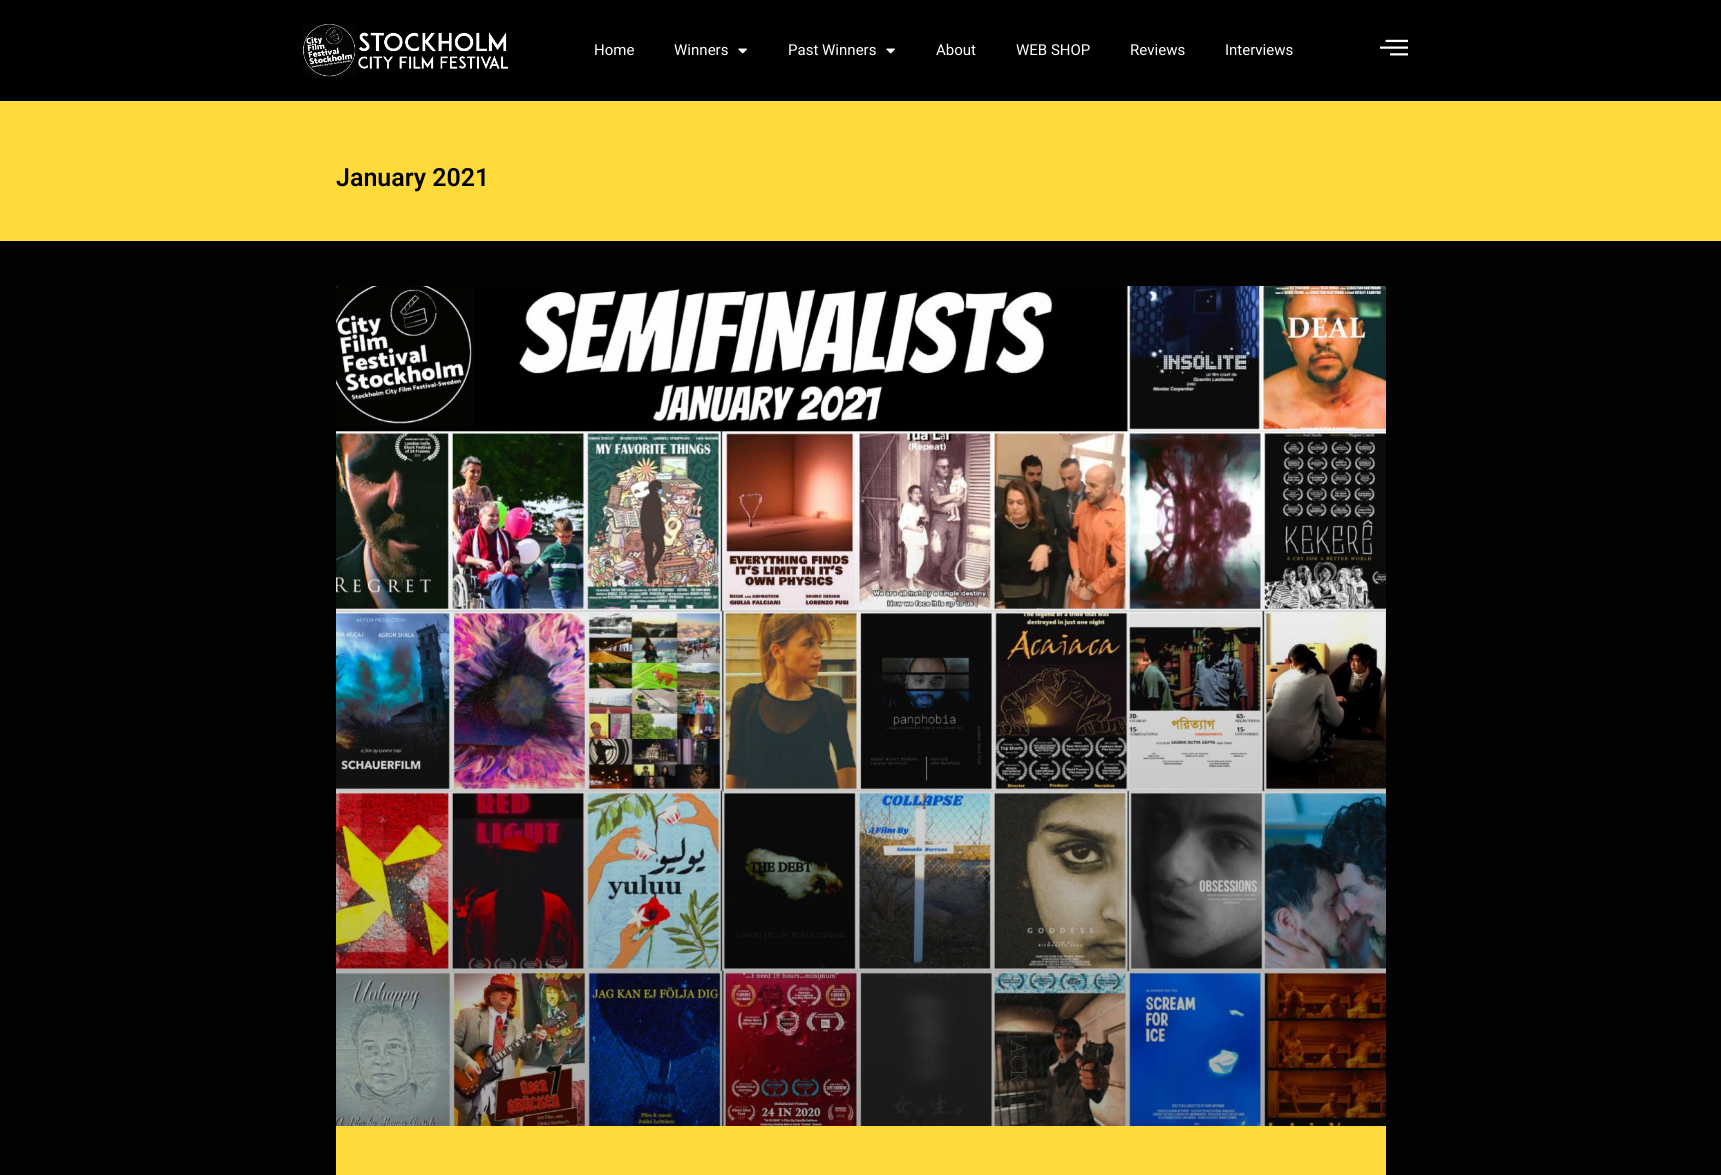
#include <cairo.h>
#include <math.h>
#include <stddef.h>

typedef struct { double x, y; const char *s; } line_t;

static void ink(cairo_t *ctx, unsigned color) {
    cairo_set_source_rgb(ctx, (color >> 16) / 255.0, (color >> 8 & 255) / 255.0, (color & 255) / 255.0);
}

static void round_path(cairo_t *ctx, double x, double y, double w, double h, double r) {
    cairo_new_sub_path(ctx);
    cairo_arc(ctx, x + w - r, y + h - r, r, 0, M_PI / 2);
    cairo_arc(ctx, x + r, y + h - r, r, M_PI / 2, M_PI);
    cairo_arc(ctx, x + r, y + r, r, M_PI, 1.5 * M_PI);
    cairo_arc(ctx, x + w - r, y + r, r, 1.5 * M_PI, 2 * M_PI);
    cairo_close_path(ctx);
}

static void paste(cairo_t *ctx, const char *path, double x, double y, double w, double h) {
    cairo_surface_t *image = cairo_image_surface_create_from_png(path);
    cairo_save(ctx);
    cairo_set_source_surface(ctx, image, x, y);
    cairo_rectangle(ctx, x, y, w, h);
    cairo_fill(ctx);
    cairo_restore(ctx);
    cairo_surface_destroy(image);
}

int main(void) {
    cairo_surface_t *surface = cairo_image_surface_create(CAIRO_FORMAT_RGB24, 1721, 1175);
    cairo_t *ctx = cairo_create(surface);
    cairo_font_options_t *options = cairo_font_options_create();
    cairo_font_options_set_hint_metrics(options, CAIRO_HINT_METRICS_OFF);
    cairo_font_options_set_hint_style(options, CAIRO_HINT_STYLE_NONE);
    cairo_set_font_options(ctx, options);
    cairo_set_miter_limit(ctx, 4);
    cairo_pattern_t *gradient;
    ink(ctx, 0xFFDA3B);
    cairo_paint(ctx);
    ink(ctx, 0x000000);
    cairo_rectangle(ctx, 0, 0, 1721, 101);
    cairo_fill(ctx);
    paste(ctx, "media/1.png", 303, 24, 206, 53);
    cairo_select_font_face(ctx, "Heebo", CAIRO_FONT_SLANT_NORMAL, CAIRO_FONT_WEIGHT_NORMAL);
    cairo_set_font_size(ctx, 15);
    ink(ctx, 0xFFFFFF);
    cairo_move_to(ctx, 594, 55);
    cairo_show_text(ctx, "Home");
    cairo_move_to(ctx, 674, 55);
    cairo_show_text(ctx, "Winners");
    paste(ctx, "media/2.png", 738, 48, 9, 6);
    cairo_move_to(ctx, 788, 55);
    cairo_show_text(ctx, "Past Winners");
    paste(ctx, "media/2.png", 886, 48, 9, 6);
    {
        static const line_t items[] = {
            {936, 55, "About"},
            {1016, 55, "WEB SHOP"},
            {1130, 55, "Reviews"},
            {1225, 55, "Interviews"},
        };
        for (size_t i = 0; i < sizeof items / sizeof *items; i++) {
            cairo_move_to(ctx, items[i].x, items[i].y);
            cairo_show_text(ctx, items[i].s);
        }
    }
    paste(ctx, "media/3.png", 1380, 39, 28, 17);
    cairo_select_font_face(ctx, "Heebo SemiBold", CAIRO_FONT_SLANT_NORMAL, CAIRO_FONT_WEIGHT_NORMAL);
    cairo_set_font_size(ctx, 25);
    ink(ctx, 0x000000);
    cairo_move_to(ctx, 336, 186);
    cairo_show_text(ctx, "January 2021");
    ink(ctx, 0x020202);
    cairo_rectangle(ctx, 0, 241, 1721, 934);
    cairo_fill(ctx);
    ink(ctx, 0xFFDA3B);
    round_path(ctx, 336, 286, 1050, 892, 3);
    cairo_fill(ctx);
    paste(ctx, "media/4.png", 336, 286, 1050, 840);
    gradient = cairo_pattern_create_linear(861, 1126, 861, 286);
    cairo_pattern_add_color_stop_rgba(gradient, 0, 0, 0, 0, 0.35);
    cairo_pattern_add_color_stop_rgba(gradient, 0.75, 0, 0, 0, 0);
    cairo_set_source(ctx, gradient);
    cairo_pattern_destroy(gradient);
    cairo_rectangle(ctx, 336, 535, 1050, 591);
    cairo_fill(ctx);
    cairo_surface_write_to_png(surface, "image.png");
    cairo_font_options_destroy(options);
    cairo_destroy(ctx);
    cairo_surface_destroy(surface);
    return 0;
}
